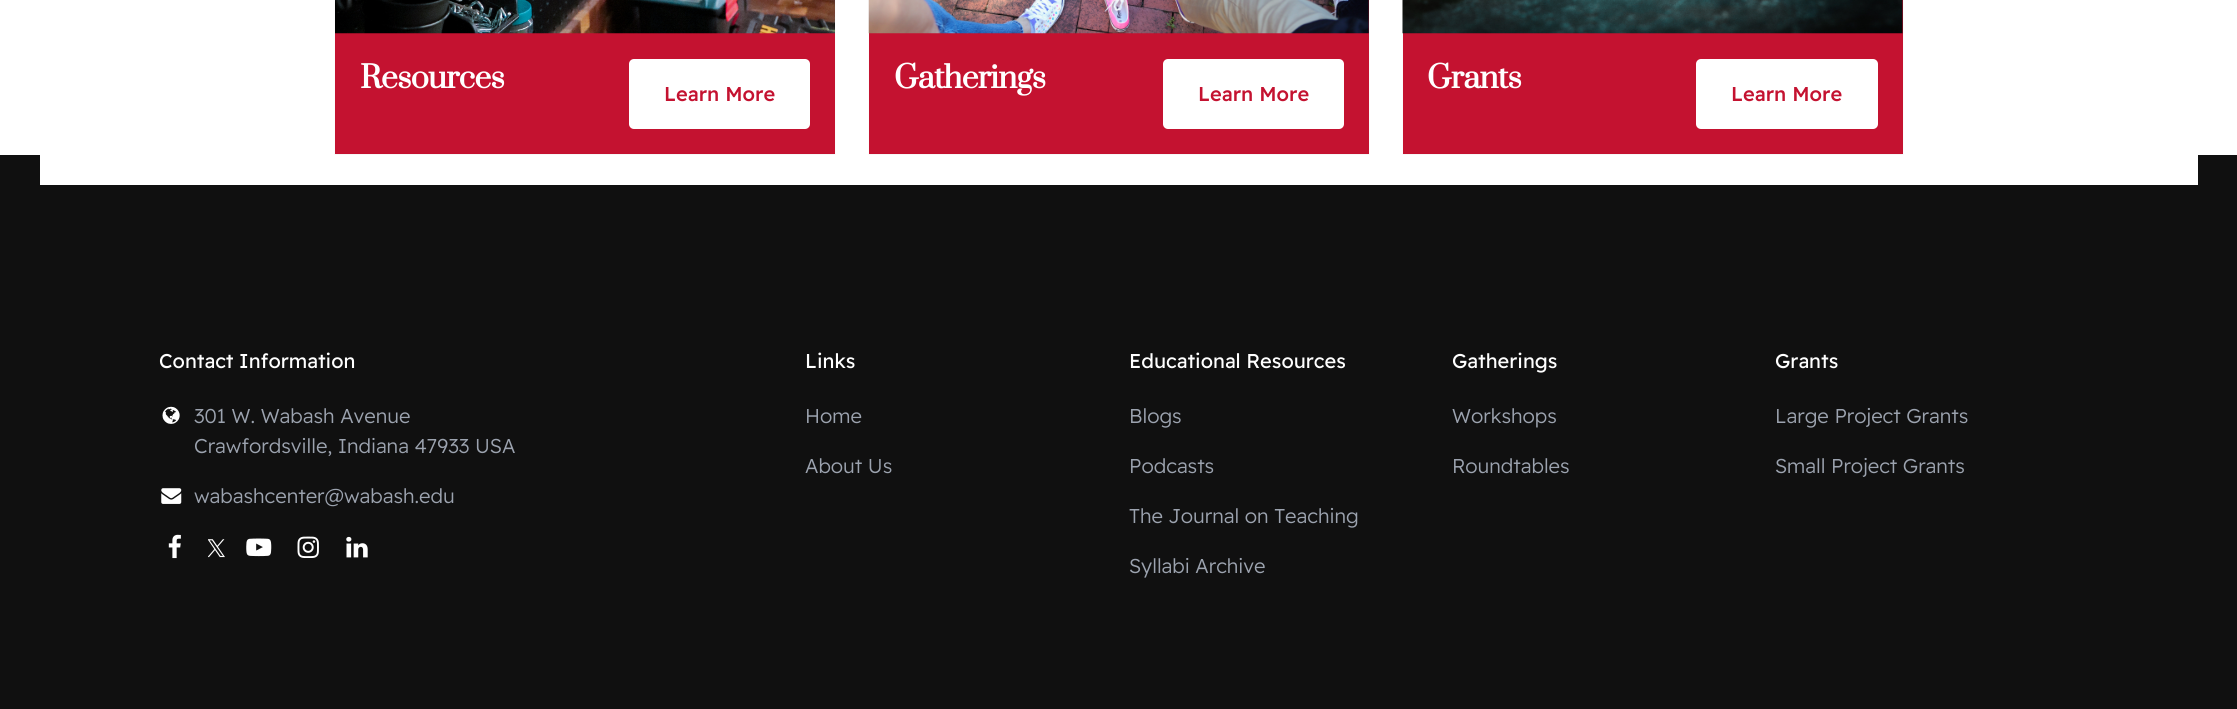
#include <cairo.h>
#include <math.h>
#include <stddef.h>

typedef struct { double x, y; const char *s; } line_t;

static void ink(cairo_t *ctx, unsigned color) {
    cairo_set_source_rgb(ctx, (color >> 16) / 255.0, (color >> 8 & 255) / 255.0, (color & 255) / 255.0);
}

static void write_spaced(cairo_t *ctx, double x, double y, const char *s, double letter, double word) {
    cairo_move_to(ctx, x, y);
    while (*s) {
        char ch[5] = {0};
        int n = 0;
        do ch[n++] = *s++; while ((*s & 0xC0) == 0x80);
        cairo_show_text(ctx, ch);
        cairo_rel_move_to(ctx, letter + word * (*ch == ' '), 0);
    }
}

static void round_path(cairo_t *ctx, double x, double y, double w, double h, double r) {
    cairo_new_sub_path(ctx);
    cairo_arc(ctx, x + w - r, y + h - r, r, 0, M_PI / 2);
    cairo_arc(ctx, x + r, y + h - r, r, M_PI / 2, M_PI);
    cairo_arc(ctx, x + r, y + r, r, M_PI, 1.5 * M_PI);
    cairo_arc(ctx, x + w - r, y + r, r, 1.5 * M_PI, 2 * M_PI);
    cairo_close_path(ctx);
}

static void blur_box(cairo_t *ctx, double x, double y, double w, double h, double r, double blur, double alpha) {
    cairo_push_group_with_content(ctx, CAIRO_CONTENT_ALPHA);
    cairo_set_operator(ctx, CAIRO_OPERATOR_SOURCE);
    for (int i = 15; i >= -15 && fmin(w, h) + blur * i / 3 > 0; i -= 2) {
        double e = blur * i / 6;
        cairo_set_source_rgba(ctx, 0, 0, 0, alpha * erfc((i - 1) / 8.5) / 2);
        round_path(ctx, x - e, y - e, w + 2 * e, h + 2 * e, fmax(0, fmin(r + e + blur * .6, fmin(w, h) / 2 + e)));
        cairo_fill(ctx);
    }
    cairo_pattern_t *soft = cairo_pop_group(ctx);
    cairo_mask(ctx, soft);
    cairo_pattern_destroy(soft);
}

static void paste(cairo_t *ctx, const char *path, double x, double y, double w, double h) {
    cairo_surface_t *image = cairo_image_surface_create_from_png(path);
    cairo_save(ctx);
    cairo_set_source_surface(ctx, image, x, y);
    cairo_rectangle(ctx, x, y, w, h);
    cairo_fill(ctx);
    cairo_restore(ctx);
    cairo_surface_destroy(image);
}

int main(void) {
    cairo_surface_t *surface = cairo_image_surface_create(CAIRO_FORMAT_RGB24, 2237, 709);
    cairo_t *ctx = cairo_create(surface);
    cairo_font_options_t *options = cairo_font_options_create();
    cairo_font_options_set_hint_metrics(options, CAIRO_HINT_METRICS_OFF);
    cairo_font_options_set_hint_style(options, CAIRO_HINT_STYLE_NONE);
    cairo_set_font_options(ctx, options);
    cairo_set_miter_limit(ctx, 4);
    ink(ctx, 0xFFFFFF);
    cairo_paint(ctx);
    ink(ctx, 0x000000);
    blur_box(ctx, 335, -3, 500, 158, 0, 1, 0.05);
    ink(ctx, 0xC41230);
    cairo_rectangle(ctx, 335, 33, 500, 121);
    cairo_fill(ctx);
    paste(ctx, "media/1.png", 335, 0, 500, 34);
    cairo_select_font_face(ctx, "Prata", CAIRO_FONT_SLANT_NORMAL, CAIRO_FONT_WEIGHT_BOLD);
    cairo_set_font_size(ctx, 30);
    ink(ctx, 0xFFFFFF);
    write_spaced(ctx, 360, 88, "Resources", -0.75, 0);
    round_path(ctx, 629, 59, 181, 70, 5);
    cairo_fill(ctx);
    cairo_select_font_face(ctx, "Readex Pro Medium", CAIRO_FONT_SLANT_NORMAL, CAIRO_FONT_WEIGHT_NORMAL);
    cairo_set_font_size(ctx, 20);
    ink(ctx, 0xC41230);
    cairo_move_to(ctx, 664, 101);
    cairo_show_text(ctx, "Learn More");
    ink(ctx, 0x000000);
    blur_box(ctx, 869, -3, 500, 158, 0, 1, 0.05);
    ink(ctx, 0xC41230);
    cairo_rectangle(ctx, 869, 0, 500, 154);
    cairo_fill(ctx);
    paste(ctx, "media/2.png", 868, 0, 501, 34);
    cairo_select_font_face(ctx, "Prata", CAIRO_FONT_SLANT_NORMAL, CAIRO_FONT_WEIGHT_BOLD);
    cairo_set_font_size(ctx, 30);
    ink(ctx, 0xFFFFFF);
    write_spaced(ctx, 894, 88, "Gatherings", -0.75, 0);
    round_path(ctx, 1163, 59, 181, 70, 5);
    cairo_fill(ctx);
    cairo_select_font_face(ctx, "Readex Pro Medium", CAIRO_FONT_SLANT_NORMAL, CAIRO_FONT_WEIGHT_NORMAL);
    cairo_set_font_size(ctx, 20);
    ink(ctx, 0xC41230);
    cairo_move_to(ctx, 1198, 101);
    cairo_show_text(ctx, "Learn More");
    ink(ctx, 0x000000);
    blur_box(ctx, 1403, -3, 500, 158, 0, 1, 0.05);
    ink(ctx, 0xC41230);
    cairo_rectangle(ctx, 1403, 0, 500, 154);
    cairo_fill(ctx);
    paste(ctx, "media/3.png", 1402, 0, 501, 34);
    cairo_select_font_face(ctx, "Prata", CAIRO_FONT_SLANT_NORMAL, CAIRO_FONT_WEIGHT_BOLD);
    cairo_set_font_size(ctx, 30);
    ink(ctx, 0xFFFFFF);
    write_spaced(ctx, 1427, 88, "Grants", -0.75, 0);
    round_path(ctx, 1696, 59, 182, 70, 5);
    cairo_fill(ctx);
    cairo_select_font_face(ctx, "Readex Pro Medium", CAIRO_FONT_SLANT_NORMAL, CAIRO_FONT_WEIGHT_NORMAL);
    cairo_set_font_size(ctx, 20);
    ink(ctx, 0xC41230);
    cairo_move_to(ctx, 1731, 101);
    cairo_show_text(ctx, "Learn More");
    ink(ctx, 0x101010);
    cairo_rectangle(ctx, 0, 155, 2237, 554);
    cairo_fill(ctx);
    ink(ctx, 0xFFFFFF);
    cairo_rectangle(ctx, 40, 155, 2158, 30);
    cairo_fill(ctx);
    cairo_select_font_face(ctx, "Readex Pro", CAIRO_FONT_SLANT_NORMAL, CAIRO_FONT_WEIGHT_NORMAL);
    cairo_move_to(ctx, 159, 368);
    cairo_show_text(ctx, "Contact Information");
    paste(ctx, "media/4.png", 162, 406, 18, 18);
    cairo_select_font_face(ctx, "Readex Pro Light", CAIRO_FONT_SLANT_NORMAL, CAIRO_FONT_WEIGHT_NORMAL);
    ink(ctx, 0x9CA3AF);
    cairo_move_to(ctx, 194, 423);
    cairo_show_text(ctx, "301 W. Wabash Avenue");
    cairo_move_to(ctx, 194, 453);
    cairo_show_text(ctx, "Crawfordsville, Indiana 47933 USA");
    paste(ctx, "media/5.png", 161, 488, 21, 16);
    cairo_move_to(ctx, 194, 503);
    cairo_show_text(ctx, "wabashcenter@wabash.edu");
    paste(ctx, "media/6.png", 168, 534, 13, 25);
    paste(ctx, "media/7.png", 208, 539, 17, 19);
    paste(ctx, "media/8.png", 246, 538, 26, 19);
    paste(ctx, "media/9.png", 297, 536, 22, 22);
    paste(ctx, "media/10.png", 346, 536, 22, 22);
    cairo_select_font_face(ctx, "Readex Pro", CAIRO_FONT_SLANT_NORMAL, CAIRO_FONT_WEIGHT_NORMAL);
    ink(ctx, 0xFFFFFF);
    cairo_move_to(ctx, 805, 368);
    cairo_show_text(ctx, "Links");
    cairo_select_font_face(ctx, "Readex Pro Light", CAIRO_FONT_SLANT_NORMAL, CAIRO_FONT_WEIGHT_NORMAL);
    ink(ctx, 0x9CA3AF);
    cairo_move_to(ctx, 805, 423);
    cairo_show_text(ctx, "Home");
    cairo_move_to(ctx, 805, 473);
    cairo_show_text(ctx, "About Us");
    cairo_select_font_face(ctx, "Readex Pro", CAIRO_FONT_SLANT_NORMAL, CAIRO_FONT_WEIGHT_NORMAL);
    ink(ctx, 0xFFFFFF);
    cairo_move_to(ctx, 1129, 368);
    cairo_show_text(ctx, "Educational Resources");
    cairo_select_font_face(ctx, "Readex Pro Light", CAIRO_FONT_SLANT_NORMAL, CAIRO_FONT_WEIGHT_NORMAL);
    ink(ctx, 0x9CA3AF);
    {
        static const line_t items[] = {
            {1129, 423, "Blogs"},
            {1129, 473, "Podcasts"},
            {1129, 523, "The Journal on Teaching"},
            {1129, 573, "Syllabi Archive"},
        };
        for (size_t i = 0; i < sizeof items / sizeof *items; i++) {
            cairo_move_to(ctx, items[i].x, items[i].y);
            cairo_show_text(ctx, items[i].s);
        }
    }
    cairo_select_font_face(ctx, "Readex Pro", CAIRO_FONT_SLANT_NORMAL, CAIRO_FONT_WEIGHT_NORMAL);
    ink(ctx, 0xFFFFFF);
    cairo_move_to(ctx, 1452, 368);
    cairo_show_text(ctx, "Gatherings");
    cairo_select_font_face(ctx, "Readex Pro Light", CAIRO_FONT_SLANT_NORMAL, CAIRO_FONT_WEIGHT_NORMAL);
    ink(ctx, 0x9CA3AF);
    cairo_move_to(ctx, 1452, 423);
    cairo_show_text(ctx, "Workshops");
    cairo_move_to(ctx, 1452, 473);
    cairo_show_text(ctx, "Roundtables");
    cairo_select_font_face(ctx, "Readex Pro", CAIRO_FONT_SLANT_NORMAL, CAIRO_FONT_WEIGHT_NORMAL);
    ink(ctx, 0xFFFFFF);
    cairo_move_to(ctx, 1775, 368);
    cairo_show_text(ctx, "Grants");
    cairo_select_font_face(ctx, "Readex Pro Light", CAIRO_FONT_SLANT_NORMAL, CAIRO_FONT_WEIGHT_NORMAL);
    ink(ctx, 0x9CA3AF);
    cairo_move_to(ctx, 1775, 423);
    cairo_show_text(ctx, "Large Project Grants");
    cairo_move_to(ctx, 1775, 473);
    cairo_show_text(ctx, "Small Project Grants");
    cairo_surface_write_to_png(surface, "image.png");
    cairo_font_options_destroy(options);
    cairo_destroy(ctx);
    cairo_surface_destroy(surface);
    return 0;
}
